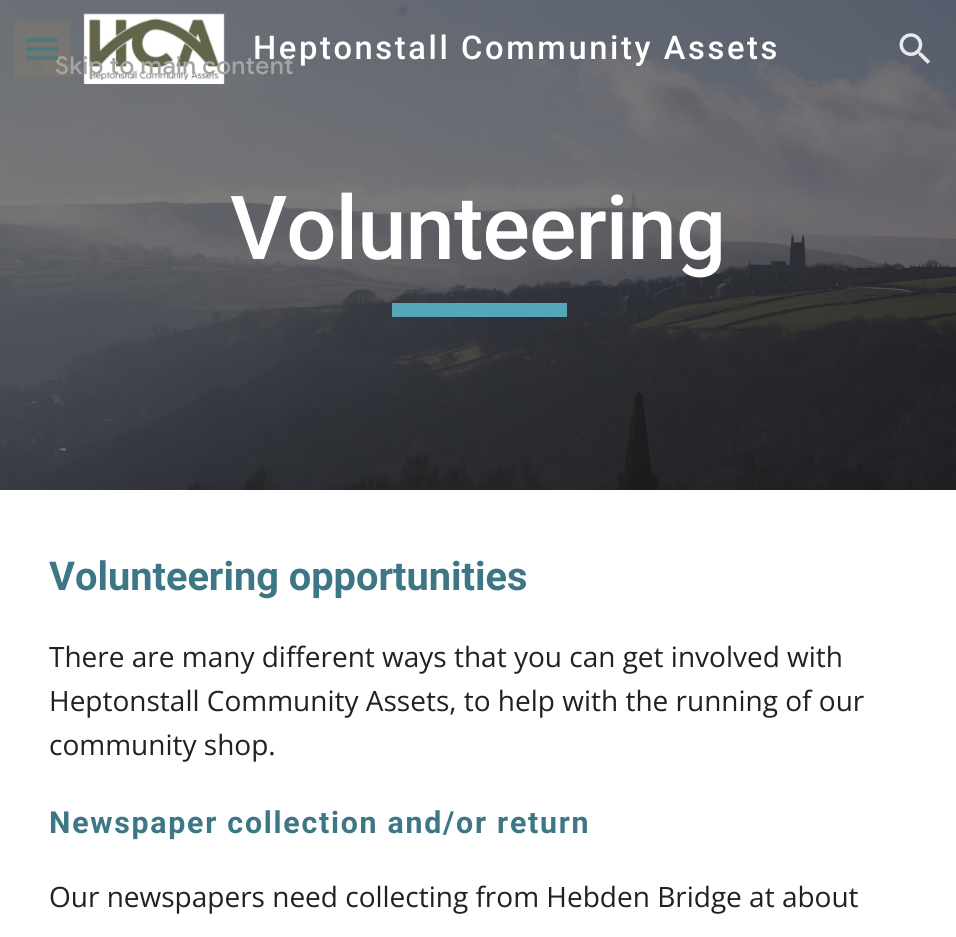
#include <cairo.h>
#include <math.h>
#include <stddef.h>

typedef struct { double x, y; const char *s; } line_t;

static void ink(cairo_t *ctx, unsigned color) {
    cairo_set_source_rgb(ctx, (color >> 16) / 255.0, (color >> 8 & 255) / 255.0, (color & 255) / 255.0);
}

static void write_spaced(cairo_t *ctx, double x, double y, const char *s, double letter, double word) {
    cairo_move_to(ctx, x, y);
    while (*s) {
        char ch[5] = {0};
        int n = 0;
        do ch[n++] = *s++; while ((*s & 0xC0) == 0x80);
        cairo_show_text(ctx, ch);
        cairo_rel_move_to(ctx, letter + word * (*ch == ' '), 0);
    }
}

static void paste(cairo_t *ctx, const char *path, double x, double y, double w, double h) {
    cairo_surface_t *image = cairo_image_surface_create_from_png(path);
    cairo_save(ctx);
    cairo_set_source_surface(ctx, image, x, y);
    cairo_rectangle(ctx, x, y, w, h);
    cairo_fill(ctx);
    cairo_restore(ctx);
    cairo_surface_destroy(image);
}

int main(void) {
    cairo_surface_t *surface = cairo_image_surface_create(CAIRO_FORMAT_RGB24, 956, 937);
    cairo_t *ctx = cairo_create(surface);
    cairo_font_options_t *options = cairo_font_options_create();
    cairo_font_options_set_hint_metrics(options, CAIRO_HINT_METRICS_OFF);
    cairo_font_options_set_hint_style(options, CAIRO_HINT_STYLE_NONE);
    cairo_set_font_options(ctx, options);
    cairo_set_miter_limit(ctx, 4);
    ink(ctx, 0xFFFFFF);
    cairo_paint(ctx);
    paste(ctx, "media/3.png", 0, 0, 956, 490);
    ink(ctx, 0x437582);
    cairo_rectangle(ctx, 26, 38, 32, 4);
    cairo_fill(ctx);
    cairo_set_source_rgba(ctx, 0.239, 0.463, 0.518, 0.88);
    cairo_rectangle(ctx, 26, 47, 32, 4);
    cairo_fill(ctx);
    paste(ctx, "media/1.png", 83, 13, 142, 71);
    cairo_select_font_face(ctx, "Roboto Medium", CAIRO_FONT_SLANT_NORMAL, CAIRO_FONT_WEIGHT_NORMAL);
    cairo_set_font_size(ctx, 32.7);
    ink(ctx, 0xFFFFFF);
    write_spaced(ctx, 253, 59, "Heptonstall Community Assets", 2.6, 0);
    cairo_select_font_face(ctx, "Google Sans Medium", CAIRO_FONT_SLANT_NORMAL, CAIRO_FONT_WEIGHT_NORMAL);
    cairo_set_font_size(ctx, 24.5);
    ink(ctx, 0xA4A6A4);
    write_spaced(ctx, 55, 74, "Skip to main content", 0.25, 0);
    cairo_set_source_rgba(ctx, 0.239, 0.463, 0.518, 0.88);
    cairo_rectangle(ctx, 26, 56, 32, 4);
    cairo_fill(ctx);
    cairo_set_source_rgba(ctx, 0.718, 0.6, 0.318, 0.12);
    cairo_rectangle(ctx, 14, 21, 56, 56);
    cairo_fill(ctx);
    paste(ctx, "media/2.png", 899, 33, 31, 31);
    cairo_select_font_face(ctx, "Roboto Medium", CAIRO_FONT_SLANT_NORMAL, CAIRO_FONT_WEIGHT_NORMAL);
    cairo_set_font_size(ctx, 88.5);
    ink(ctx, 0xFFFFFF);
    write_spaced(ctx, 230, 259, "Volunteering", -0.9, 0);
    ink(ctx, 0x53A7B8);
    cairo_rectangle(ctx, 392, 303, 175, 14);
    cairo_fill(ctx);
    cairo_select_font_face(ctx, "Roboto", CAIRO_FONT_SLANT_NORMAL, CAIRO_FONT_WEIGHT_BOLD);
    cairo_set_font_size(ctx, 39.75);
    ink(ctx, 0x3D7684);
    cairo_move_to(ctx, 49, 590);
    cairo_show_text(ctx, "Volunteering opportunities");
    cairo_select_font_face(ctx, "Open Sans", CAIRO_FONT_SLANT_NORMAL, CAIRO_FONT_WEIGHT_NORMAL);
    cairo_set_font_size(ctx, 28);
    ink(ctx, 0x212121);
    {
        static const line_t items[] = {
            {49, 667, "There are many different ways that you can get involved with"},
            {49, 711, "Heptonstall Community Assets, to help with the running of our"},
            {49, 755, "community shop."},
        };
        for (size_t i = 0; i < sizeof items / sizeof *items; i++) {
            cairo_move_to(ctx, items[i].x, items[i].y);
            cairo_show_text(ctx, items[i].s);
        }
    }
    cairo_select_font_face(ctx, "Roboto", CAIRO_FONT_SLANT_NORMAL, CAIRO_FONT_WEIGHT_BOLD);
    cairo_set_font_size(ctx, 30.3);
    ink(ctx, 0x3D7684);
    write_spaced(ctx, 49, 833, "Newspaper collection and/or return", 1.75, 0);
    cairo_select_font_face(ctx, "Open Sans", CAIRO_FONT_SLANT_NORMAL, CAIRO_FONT_WEIGHT_NORMAL);
    cairo_set_font_size(ctx, 28);
    ink(ctx, 0x212121);
    cairo_move_to(ctx, 49, 907);
    cairo_show_text(ctx, "Our newspapers need collecting from Hebden Bridge at about");
    cairo_surface_write_to_png(surface, "image.png");
    cairo_font_options_destroy(options);
    cairo_destroy(ctx);
    cairo_surface_destroy(surface);
    return 0;
}
